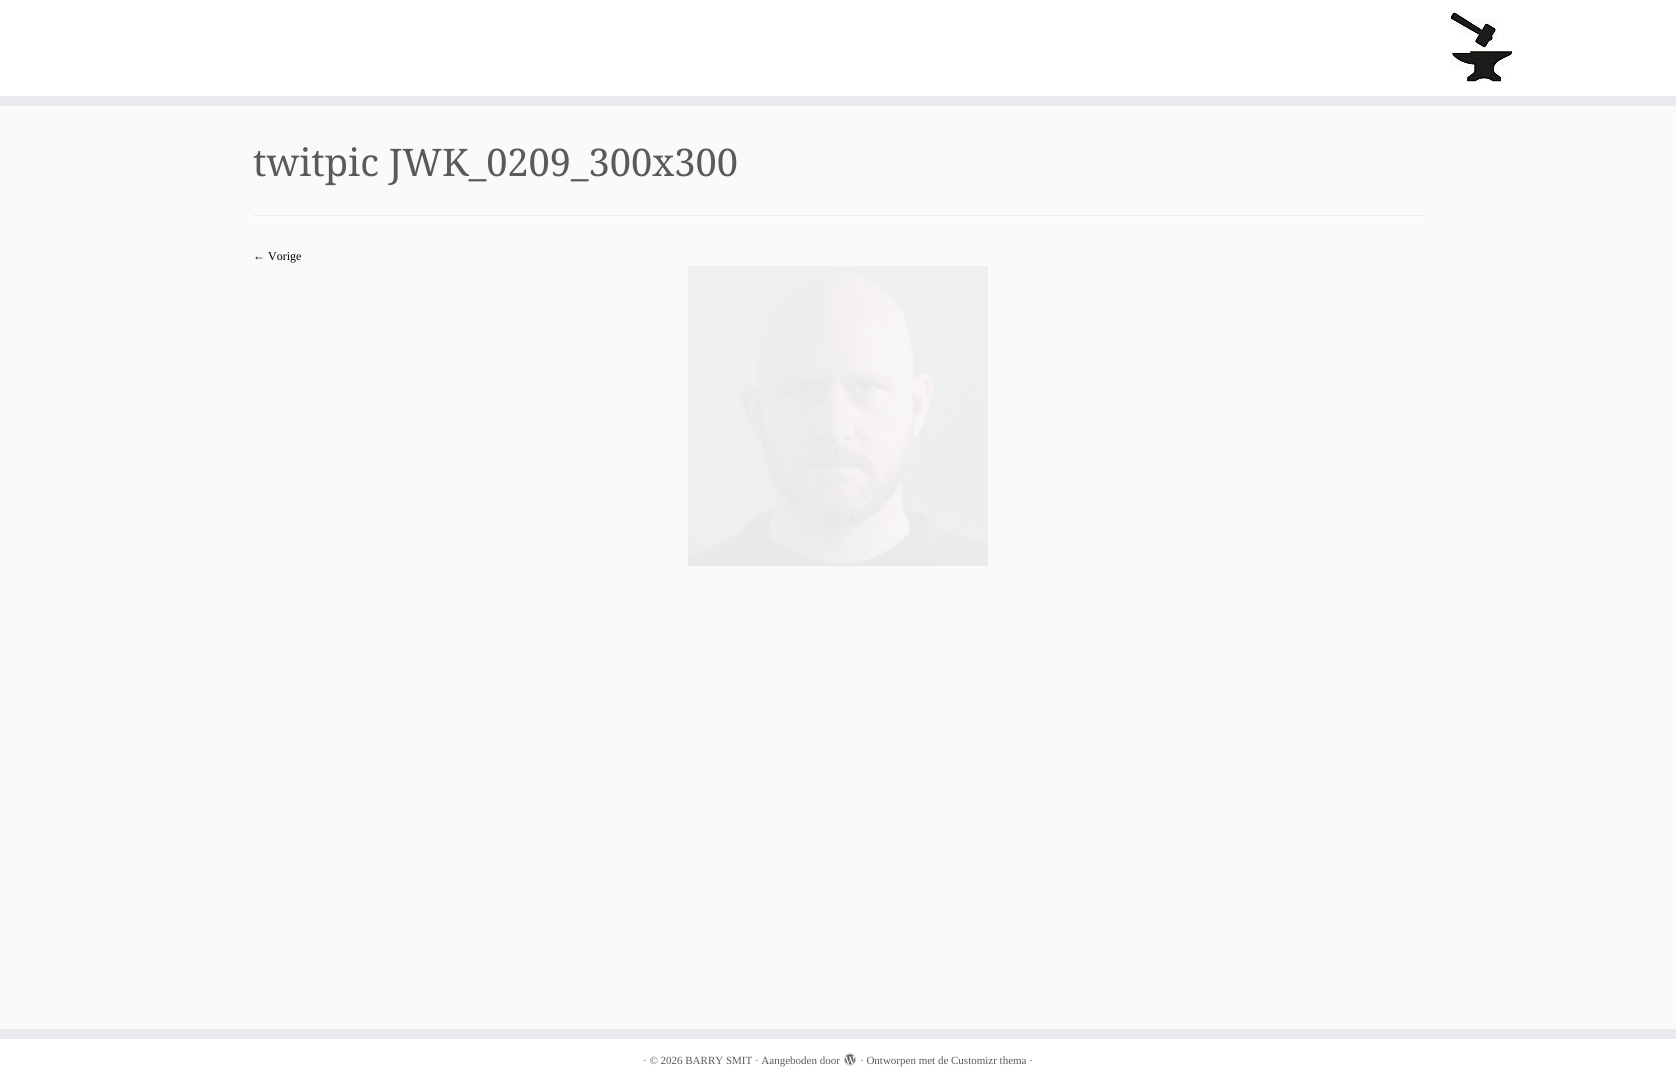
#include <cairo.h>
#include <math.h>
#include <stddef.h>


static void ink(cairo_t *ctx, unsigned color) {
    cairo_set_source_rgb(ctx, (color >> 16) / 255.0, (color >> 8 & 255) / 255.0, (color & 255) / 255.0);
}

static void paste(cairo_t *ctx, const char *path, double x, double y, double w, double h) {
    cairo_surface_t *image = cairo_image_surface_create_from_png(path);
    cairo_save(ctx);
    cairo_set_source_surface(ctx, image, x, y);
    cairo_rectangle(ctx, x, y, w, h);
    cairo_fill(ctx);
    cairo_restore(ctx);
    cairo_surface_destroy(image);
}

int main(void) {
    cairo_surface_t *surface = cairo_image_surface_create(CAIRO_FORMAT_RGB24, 1676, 1091);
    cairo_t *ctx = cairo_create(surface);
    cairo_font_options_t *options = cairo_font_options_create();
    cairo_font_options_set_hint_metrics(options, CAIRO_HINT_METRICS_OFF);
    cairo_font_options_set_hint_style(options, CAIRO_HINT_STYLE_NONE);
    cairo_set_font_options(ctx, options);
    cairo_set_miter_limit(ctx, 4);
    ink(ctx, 0xFAFAFA);
    cairo_paint(ctx);
    ink(ctx, 0xFFFFFF);
    cairo_rectangle(ctx, 0, 0, 1676, 96);
    cairo_fill(ctx);
    ink(ctx, 0xE9EAEE);
    cairo_rectangle(ctx, 0, 96, 1676, 10);
    cairo_fill(ctx);
    paste(ctx, "media/1.png", 1449, 10, 64, 72);
    cairo_select_font_face(ctx, "Noto Serif", CAIRO_FONT_SLANT_NORMAL, CAIRO_FONT_WEIGHT_NORMAL);
    cairo_set_font_size(ctx, 38);
    ink(ctx, 0x5A5A5A);
    cairo_move_to(ctx, 253, 176);
    cairo_show_text(ctx, "twitpic JWK_0209_300x300");
    ink(ctx, 0xEEEEEE);
    cairo_rectangle(ctx, 253, 215, 1170, 1);
    cairo_fill(ctx);
    ink(ctx, 0xFFFFFF);
    cairo_rectangle(ctx, 253, 216, 1170, 1);
    cairo_fill(ctx);
    cairo_select_font_face(ctx, "Liberation Serif", CAIRO_FONT_SLANT_NORMAL, CAIRO_FONT_WEIGHT_NORMAL);
    cairo_set_font_size(ctx, 12);
    ink(ctx, 0x000000);
    cairo_move_to(ctx, 253, 260);
    cairo_show_text(ctx, "← Vorige");
    paste(ctx, "media/2.png", 688, 266, 300, 300);
    ink(ctx, 0xE9EAEE);
    cairo_rectangle(ctx, 0, 1029, 1676, 10);
    cairo_fill(ctx);
    ink(ctx, 0xFFFFFF);
    cairo_rectangle(ctx, 0, 1039, 1676, 52);
    cairo_fill(ctx);
    cairo_set_font_size(ctx, 11);
    ink(ctx, 0x5A5A5A);
    cairo_move_to(ctx, 643, 1064);
    cairo_show_text(ctx, "· © 2026 BARRY SMIT · Aangeboden door");
    paste(ctx, "media/3.png", 844, 1053, 12, 13);
    cairo_move_to(ctx, 860, 1064);
    cairo_show_text(ctx, "· Ontworpen met de Customizr thema ·");
    cairo_surface_write_to_png(surface, "image.png");
    cairo_font_options_destroy(options);
    cairo_destroy(ctx);
    cairo_surface_destroy(surface);
    return 0;
}
